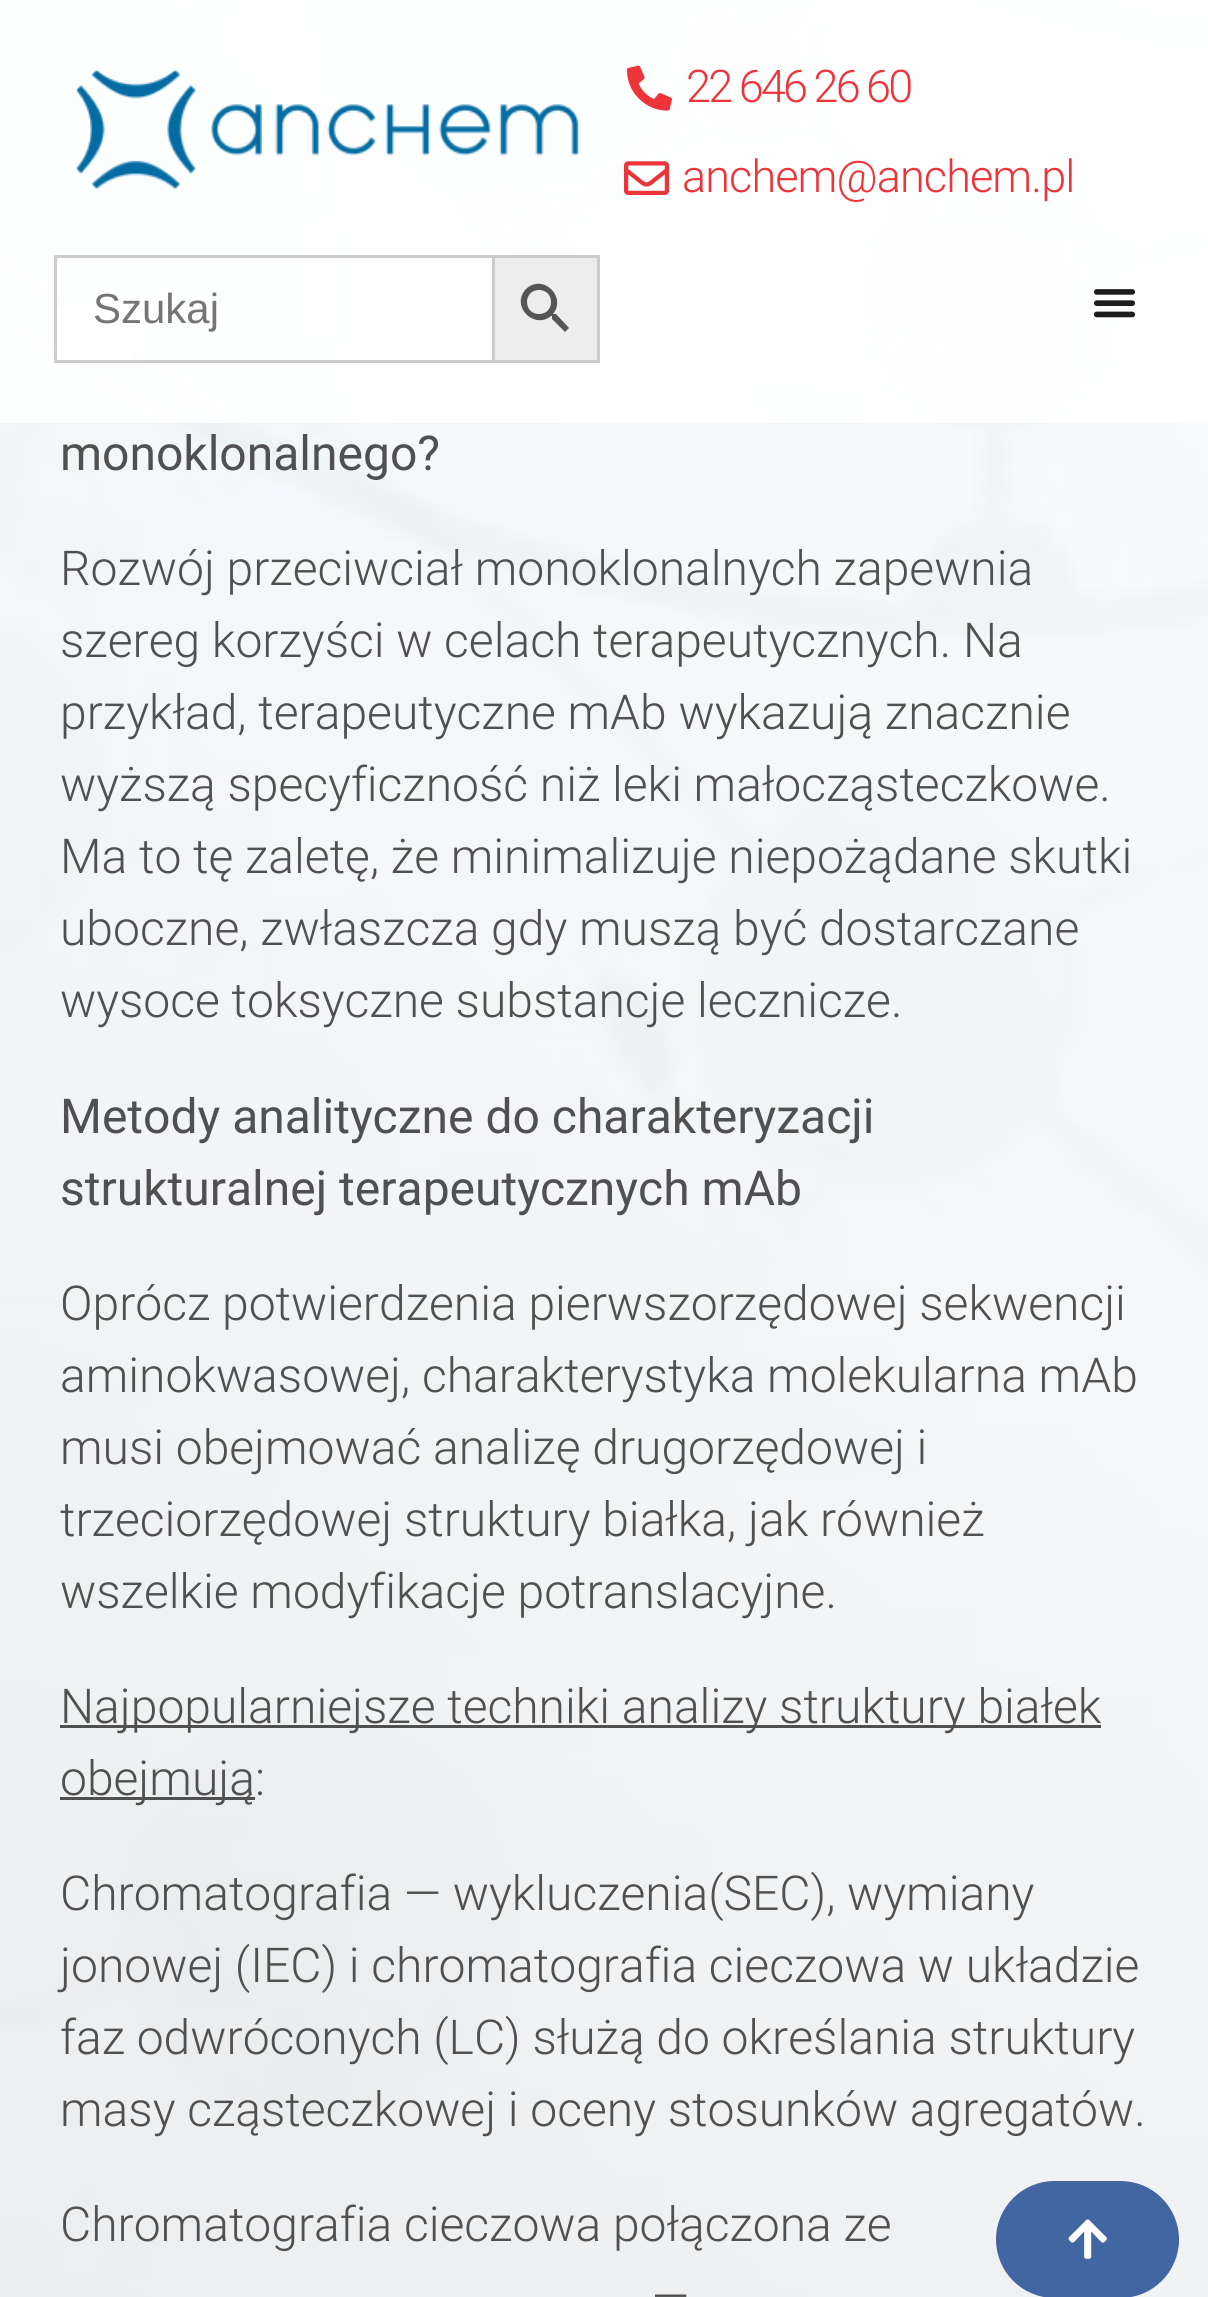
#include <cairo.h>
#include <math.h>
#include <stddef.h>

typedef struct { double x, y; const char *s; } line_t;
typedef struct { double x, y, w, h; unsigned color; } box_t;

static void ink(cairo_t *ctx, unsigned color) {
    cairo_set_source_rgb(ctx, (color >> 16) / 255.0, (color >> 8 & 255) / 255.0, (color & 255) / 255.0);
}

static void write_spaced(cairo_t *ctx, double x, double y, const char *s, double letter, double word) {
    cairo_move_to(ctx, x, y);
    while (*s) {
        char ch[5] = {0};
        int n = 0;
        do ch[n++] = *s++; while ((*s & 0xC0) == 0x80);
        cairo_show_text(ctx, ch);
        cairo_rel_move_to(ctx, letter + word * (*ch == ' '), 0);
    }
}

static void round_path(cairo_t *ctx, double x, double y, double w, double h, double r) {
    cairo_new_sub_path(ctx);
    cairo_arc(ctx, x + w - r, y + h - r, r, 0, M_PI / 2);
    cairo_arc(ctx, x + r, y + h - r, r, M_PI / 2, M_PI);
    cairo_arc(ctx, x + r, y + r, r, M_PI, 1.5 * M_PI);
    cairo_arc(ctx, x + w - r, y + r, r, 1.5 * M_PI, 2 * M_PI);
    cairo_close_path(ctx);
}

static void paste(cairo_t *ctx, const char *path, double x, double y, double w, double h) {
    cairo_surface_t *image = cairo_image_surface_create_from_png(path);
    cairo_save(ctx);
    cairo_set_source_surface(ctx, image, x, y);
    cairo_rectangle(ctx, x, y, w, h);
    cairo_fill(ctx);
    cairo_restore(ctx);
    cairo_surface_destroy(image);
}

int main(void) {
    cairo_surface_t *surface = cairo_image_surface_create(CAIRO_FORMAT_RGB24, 1208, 2297);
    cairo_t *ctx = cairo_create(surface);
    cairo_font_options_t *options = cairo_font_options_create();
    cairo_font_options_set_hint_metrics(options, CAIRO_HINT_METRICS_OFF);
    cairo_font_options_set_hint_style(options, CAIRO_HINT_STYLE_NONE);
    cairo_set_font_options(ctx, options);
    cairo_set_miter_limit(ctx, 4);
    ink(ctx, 0xFFFFFF);
    cairo_paint(ctx);
    paste(ctx, "media/1.png", 0, 0, 1208, 2297);
    cairo_set_source_rgba(ctx, 1, 1, 1, 0.85);
    cairo_rectangle(ctx, 0, 0, 1208, 423);
    cairo_fill(ctx);
    paste(ctx, "media/2.png", 627, 65, 45, 46);
    cairo_select_font_face(ctx, "Roboto Light", CAIRO_FONT_SLANT_NORMAL, CAIRO_FONT_WEIGHT_NORMAL);
    cairo_set_font_size(ctx, 45);
    ink(ctx, 0xED3439);
    write_spaced(ctx, 686, 102, "22 646 26 60", -2.75, 0);
    paste(ctx, "media/3.png", 624, 161, 45, 34);
    write_spaced(ctx, 682, 192, "anchem@anchem.pl", -0.9, 0);
    paste(ctx, "media/4.png", 1093, 289, 43, 29);
    paste(ctx, "media/5.png", 75, 69, 504, 121);
    {
        static const box_t items[] = {
            {57, 307, 77, 53, 0xFFFFFF},
            {54, 255, 438, 3, 0xCCCCCC},
            {54, 360, 438, 3, 0xCCCCCC},
            {54, 255, 3, 108, 0xCCCCCC},
        };
        for (size_t i = 0; i < sizeof items / sizeof *items; i++) {
            ink(ctx, items[i].color);
            cairo_rectangle(ctx, items[i].x, items[i].y, items[i].w, items[i].h);
            cairo_fill(ctx);
        }
    }
    cairo_select_font_face(ctx, "Liberation Sans", CAIRO_FONT_SLANT_NORMAL, CAIRO_FONT_WEIGHT_NORMAL);
    cairo_set_font_size(ctx, 42);
    ink(ctx, 0x757575);
    cairo_move_to(ctx, 93, 323);
    cairo_show_text(ctx, "Szukaj");
    ink(ctx, 0xEDEDED);
    cairo_rectangle(ctx, 493.5, 256.5, 105, 105);
    cairo_fill_preserve(ctx);
    ink(ctx, 0xCCCCCC);
    cairo_set_line_width(ctx, 3);
    cairo_stroke(ctx);
    ink(ctx, 0x555555);
    cairo_new_path(ctx);
    cairo_move_to(ctx, 556, 314);
    cairo_line_to(ctx, 553, 314);
    cairo_curve_to(ctx, 567, 297, 543, 273, 526, 289);
    cairo_curve_to(ctx, 510, 306, 534, 330, 551, 316);
    cairo_line_to(ctx, 552, 316);
    cairo_line_to(ctx, 552, 319);
    cairo_line_to(ctx, 565, 332);
    cairo_line_to(ctx, 569, 328);
    cairo_close_path(ctx);
    cairo_move_to(ctx, 539, 314);
    cairo_curve_to(ctx, 523, 314, 523, 290, 539, 290);
    cairo_curve_to(ctx, 555, 290, 555, 314, 539, 314);
    cairo_close_path(ctx);
    cairo_fill(ctx);
    cairo_select_font_face(ctx, "Roboto", CAIRO_FONT_SLANT_NORMAL, CAIRO_FONT_WEIGHT_NORMAL);
    cairo_set_font_size(ctx, 48);
    ink(ctx, 0x515050);
    cairo_move_to(ctx, 60, 470);
    cairo_show_text(ctx, "monoklonalnego?");
    cairo_select_font_face(ctx, "Roboto Light", CAIRO_FONT_SLANT_NORMAL, CAIRO_FONT_WEIGHT_NORMAL);
    {
        static const line_t items[] = {
            {60, 585, "Rozwój przeciwciał monoklonalnych zapewnia"},
            {60, 657, "szereg korzyści w celach terapeutycznych. Na"},
            {60, 729, "przykład, terapeutyczne mAb wykazują znacznie"},
            {60, 801, "wyższą specyficzność niż leki małocząsteczkowe."},
            {60, 873, "Ma to tę zaletę, że minimalizuje niepożądane skutki"},
            {60, 945, "uboczne, zwłaszcza gdy muszą być dostarczane"},
            {60, 1017, "wysoce toksyczne substancje lecznicze."},
        };
        for (size_t i = 0; i < sizeof items / sizeof *items; i++) {
            cairo_move_to(ctx, items[i].x, items[i].y);
            cairo_show_text(ctx, items[i].s);
        }
    }
    cairo_select_font_face(ctx, "Roboto", CAIRO_FONT_SLANT_NORMAL, CAIRO_FONT_WEIGHT_NORMAL);
    cairo_move_to(ctx, 60, 1133);
    cairo_show_text(ctx, "Metody analityczne do charakteryzacji");
    cairo_move_to(ctx, 60, 1205);
    cairo_show_text(ctx, "strukturalnej terapeutycznych mAb");
    cairo_select_font_face(ctx, "Roboto Light", CAIRO_FONT_SLANT_NORMAL, CAIRO_FONT_WEIGHT_NORMAL);
    {
        static const line_t items[] = {
            {60, 1320, "Oprócz potwierdzenia pierwszorzędowej sekwencji"},
            {60, 1392, "aminokwasowej, charakterystyka molekularna mAb"},
            {60, 1464, "musi obejmować analizę drugorzędowej i"},
            {60, 1536, "trzeciorzędowej struktury białka, jak również"},
            {60, 1608, "wszelkie modyfikacje potranslacyjne."},
        };
        for (size_t i = 0; i < sizeof items / sizeof *items; i++) {
            cairo_move_to(ctx, items[i].x, items[i].y);
            cairo_show_text(ctx, items[i].s);
        }
    }
    cairo_rectangle(ctx, 60, 1725, 1041, 3);
    cairo_fill(ctx);
    cairo_move_to(ctx, 60, 1723);
    cairo_show_text(ctx, "Najpopularniejsze techniki analizy struktury białek");
    cairo_rectangle(ctx, 60, 1797, 195, 3);
    cairo_fill(ctx);
    {
        static const line_t items[] = {
            {60, 1795, "obejmują:"},
            {60, 1910, "Chromatografia — wykluczenia(SEC), wymiany"},
            {60, 1982, "jonowej (IEC) i chromatografia cieczowa w układzie"},
            {60, 2054, "faz odwróconych (LC) służą do określania struktury"},
            {60, 2126, "masy cząsteczkowej i oceny stosunków agregatów."},
            {60, 2241, "Chromatografia cieczowa połączona ze"},
            {652, 2313, "—"},
        };
        for (size_t i = 0; i < sizeof items / sizeof *items; i++) {
            cairo_move_to(ctx, items[i].x, items[i].y);
            cairo_show_text(ctx, items[i].s);
        }
    }
    ink(ctx, 0x4166A1);
    round_path(ctx, 996, 2181, 183, 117, 58.5);
    cairo_fill(ctx);
    paste(ctx, "media/6.png", 1068, 2219, 39, 40);
    cairo_surface_write_to_png(surface, "image.png");
    cairo_font_options_destroy(options);
    cairo_destroy(ctx);
    cairo_surface_destroy(surface);
    return 0;
}
